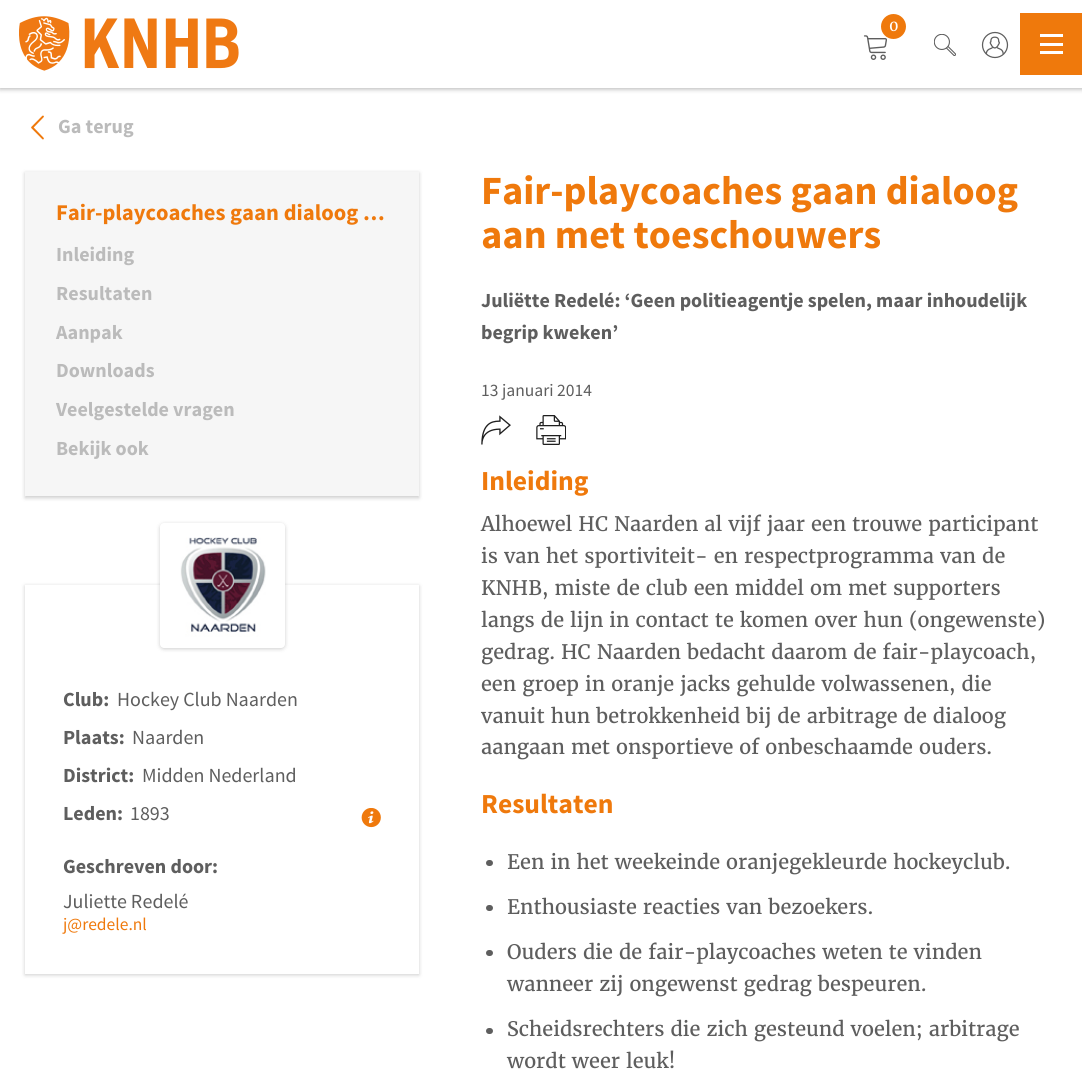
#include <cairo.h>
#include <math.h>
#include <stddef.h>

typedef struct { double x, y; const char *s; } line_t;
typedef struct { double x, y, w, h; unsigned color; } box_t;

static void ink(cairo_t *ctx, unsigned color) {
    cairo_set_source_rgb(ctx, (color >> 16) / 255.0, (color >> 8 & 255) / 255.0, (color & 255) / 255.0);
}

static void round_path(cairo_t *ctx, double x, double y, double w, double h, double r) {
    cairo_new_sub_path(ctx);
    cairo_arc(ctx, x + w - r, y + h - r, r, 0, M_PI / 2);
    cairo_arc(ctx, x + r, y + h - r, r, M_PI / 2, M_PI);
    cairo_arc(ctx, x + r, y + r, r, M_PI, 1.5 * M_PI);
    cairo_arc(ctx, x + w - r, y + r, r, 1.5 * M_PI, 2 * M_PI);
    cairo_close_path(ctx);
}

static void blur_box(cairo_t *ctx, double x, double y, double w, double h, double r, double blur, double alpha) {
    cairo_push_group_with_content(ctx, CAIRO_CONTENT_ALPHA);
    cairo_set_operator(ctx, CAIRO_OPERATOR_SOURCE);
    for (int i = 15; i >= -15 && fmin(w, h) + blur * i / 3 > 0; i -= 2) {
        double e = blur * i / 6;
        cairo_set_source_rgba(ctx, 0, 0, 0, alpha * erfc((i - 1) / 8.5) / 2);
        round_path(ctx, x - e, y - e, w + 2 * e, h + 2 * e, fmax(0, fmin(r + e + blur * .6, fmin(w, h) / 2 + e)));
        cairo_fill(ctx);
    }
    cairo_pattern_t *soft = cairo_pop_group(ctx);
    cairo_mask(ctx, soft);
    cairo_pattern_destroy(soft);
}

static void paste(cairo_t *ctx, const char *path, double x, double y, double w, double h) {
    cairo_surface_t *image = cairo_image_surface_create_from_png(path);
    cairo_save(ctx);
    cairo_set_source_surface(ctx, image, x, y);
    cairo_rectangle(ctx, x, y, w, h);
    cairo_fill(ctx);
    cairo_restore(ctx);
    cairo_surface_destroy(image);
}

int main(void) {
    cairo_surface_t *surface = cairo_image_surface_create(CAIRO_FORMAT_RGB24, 1082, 1076);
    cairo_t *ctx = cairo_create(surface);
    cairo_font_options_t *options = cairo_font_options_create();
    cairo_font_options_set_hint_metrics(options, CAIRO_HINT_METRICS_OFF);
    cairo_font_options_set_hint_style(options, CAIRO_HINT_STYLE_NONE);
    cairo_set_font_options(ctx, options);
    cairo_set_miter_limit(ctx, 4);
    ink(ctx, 0xFFFFFF);
    cairo_paint(ctx);
    ink(ctx, 0x000000);
    blur_box(ctx, 0, 1, 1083, 88, 0, 2.5, 0.3);
    ink(ctx, 0xFFFFFF);
    cairo_rectangle(ctx, 0, 0, 1082, 88);
    cairo_fill(ctx);
    paste(ctx, "media/1.png", 19, 16, 220, 55);
    paste(ctx, "media/2.png", 863, 35, 24, 25);
    ink(ctx, 0xEF790C);
    cairo_arc(ctx, 893.5, 26.5, 12.5, 0, 2 * M_PI);
    cairo_fill(ctx);
    cairo_select_font_face(ctx, "Merriweather", CAIRO_FONT_SLANT_NORMAL, CAIRO_FONT_WEIGHT_NORMAL);
    cairo_set_font_size(ctx, 15);
    ink(ctx, 0xFFFFFF);
    cairo_move_to(ctx, 889, 31);
    cairo_show_text(ctx, "0");
    {
        static const box_t items[] = {
            {1020, 13, 62, 62, 0xEF790C},
            {1040, 43, 23, 3, 0xFFFFFF},
            {1040, 34, 23, 3, 0xFFFFFF},
            {1040, 51, 23, 3, 0xFFFFFF},
        };
        for (size_t i = 0; i < sizeof items / sizeof *items; i++) {
            ink(ctx, items[i].color);
            cairo_rectangle(ctx, items[i].x, items[i].y, items[i].w, items[i].h);
            cairo_fill(ctx);
        }
    }
    paste(ctx, "media/3.png", 934, 34, 22, 22);
    paste(ctx, "media/4.png", 981, 31, 28, 28);
    paste(ctx, "media/5.png", 31, 115, 13, 25);
    cairo_select_font_face(ctx, "Source Sans Pro", CAIRO_FONT_SLANT_NORMAL, CAIRO_FONT_WEIGHT_BOLD);
    cairo_set_font_size(ctx, 20);
    ink(ctx, 0xBBBBBB);
    cairo_move_to(ctx, 58, 133);
    cairo_show_text(ctx, "Ga terug");
    ink(ctx, 0x000000);
    blur_box(ctx, 25, 173, 394, 325, 0, 2, 0.2);
    ink(ctx, 0xF6F6F6);
    cairo_rectangle(ctx, 25, 172, 394, 324);
    cairo_fill(ctx);
    cairo_set_font_size(ctx, 22.5);
    ink(ctx, 0xEF790C);
    cairo_move_to(ctx, 56, 220);
    cairo_show_text(ctx, "Fair-playcoaches gaan dialoog …");
    cairo_set_font_size(ctx, 20);
    ink(ctx, 0xBBBBBB);
    {
        static const line_t items[] = {
            {56, 261, "Inleiding"},
            {56, 300, "Resultaten"},
            {56, 339, "Aanpak"},
            {56, 377, "Downloads"},
            {56, 416, "Veelgestelde vragen"},
            {56, 455, "Bekijk ook"},
        };
        for (size_t i = 0; i < sizeof items / sizeof *items; i++) {
            cairo_move_to(ctx, items[i].x, items[i].y);
            cairo_show_text(ctx, items[i].s);
        }
    }
    ink(ctx, 0x000000);
    blur_box(ctx, 25, 586, 394, 389, 0, 2, 0.2);
    ink(ctx, 0xFFFFFF);
    cairo_rectangle(ctx, 25, 585, 394, 389);
    cairo_fill(ctx);
    ink(ctx, 0x000000);
    blur_box(ctx, 160, 524, 125, 125, 4, 2, 0.2);
    ink(ctx, 0xFFFFFF);
    round_path(ctx, 160, 523, 125, 125, 4);
    cairo_fill(ctx);
    paste(ctx, "media/6.png", 180, 537, 86, 100);
    ink(ctx, 0x5E5E5E);
    cairo_move_to(ctx, 63, 706);
    cairo_show_text(ctx, "Club:");
    cairo_select_font_face(ctx, "Source Sans Pro", CAIRO_FONT_SLANT_NORMAL, CAIRO_FONT_WEIGHT_NORMAL);
    cairo_move_to(ctx, 117, 706);
    cairo_show_text(ctx, "Hockey Club Naarden");
    cairo_select_font_face(ctx, "Source Sans Pro", CAIRO_FONT_SLANT_NORMAL, CAIRO_FONT_WEIGHT_BOLD);
    cairo_move_to(ctx, 63, 744);
    cairo_show_text(ctx, "Plaats:");
    cairo_select_font_face(ctx, "Source Sans Pro", CAIRO_FONT_SLANT_NORMAL, CAIRO_FONT_WEIGHT_NORMAL);
    cairo_move_to(ctx, 132, 744);
    cairo_show_text(ctx, "Naarden");
    cairo_select_font_face(ctx, "Source Sans Pro", CAIRO_FONT_SLANT_NORMAL, CAIRO_FONT_WEIGHT_BOLD);
    cairo_move_to(ctx, 63, 782);
    cairo_show_text(ctx, "District:");
    cairo_select_font_face(ctx, "Source Sans Pro", CAIRO_FONT_SLANT_NORMAL, CAIRO_FONT_WEIGHT_NORMAL);
    cairo_move_to(ctx, 142, 782);
    cairo_show_text(ctx, "Midden Nederland");
    cairo_select_font_face(ctx, "Source Sans Pro", CAIRO_FONT_SLANT_NORMAL, CAIRO_FONT_WEIGHT_BOLD);
    cairo_move_to(ctx, 63, 820);
    cairo_show_text(ctx, "Leden:");
    cairo_select_font_face(ctx, "Source Sans Pro", CAIRO_FONT_SLANT_NORMAL, CAIRO_FONT_WEIGHT_NORMAL);
    cairo_move_to(ctx, 130, 820);
    cairo_show_text(ctx, "1893");
    paste(ctx, "media/7.png", 361, 808, 20, 20);
    cairo_select_font_face(ctx, "Source Sans Pro", CAIRO_FONT_SLANT_NORMAL, CAIRO_FONT_WEIGHT_BOLD);
    cairo_move_to(ctx, 63, 873);
    cairo_show_text(ctx, "Geschreven door:");
    cairo_select_font_face(ctx, "Source Sans Pro", CAIRO_FONT_SLANT_NORMAL, CAIRO_FONT_WEIGHT_NORMAL);
    cairo_move_to(ctx, 63, 908);
    cairo_show_text(ctx, "Juliette Redelé");
    cairo_set_font_size(ctx, 17.5);
    ink(ctx, 0xEF790C);
    cairo_move_to(ctx, 63, 930);
    cairo_show_text(ctx, "j@redele.nl");
    cairo_select_font_face(ctx, "Source Sans Pro", CAIRO_FONT_SLANT_NORMAL, CAIRO_FONT_WEIGHT_BOLD);
    cairo_set_font_size(ctx, 40);
    cairo_move_to(ctx, 481, 204);
    cairo_show_text(ctx, "Fair-playcoaches gaan dialoog");
    cairo_move_to(ctx, 481, 248);
    cairo_show_text(ctx, "aan met toeschouwers");
    cairo_set_font_size(ctx, 20);
    ink(ctx, 0x5E5E5E);
    cairo_move_to(ctx, 481, 307);
    cairo_show_text(ctx, "Juliëtte Redelé: ‘Geen politieagentje spelen, maar inhoudelijk");
    cairo_move_to(ctx, 481, 339);
    cairo_show_text(ctx, "begrip kweken’");
    cairo_select_font_face(ctx, "Source Sans Pro", CAIRO_FONT_SLANT_NORMAL, CAIRO_FONT_WEIGHT_NORMAL);
    cairo_set_font_size(ctx, 17.5);
    cairo_move_to(ctx, 481, 396);
    cairo_show_text(ctx, "13 januari 2014");
    paste(ctx, "media/8.png", 481, 415, 30, 30);
    paste(ctx, "media/9.png", 536, 415, 30, 30);
    cairo_select_font_face(ctx, "Source Sans Pro", CAIRO_FONT_SLANT_NORMAL, CAIRO_FONT_WEIGHT_BOLD);
    cairo_set_font_size(ctx, 27.5);
    ink(ctx, 0xEF790C);
    cairo_move_to(ctx, 481, 490);
    cairo_show_text(ctx, "Inleiding");
    cairo_select_font_face(ctx, "Merriweather", CAIRO_FONT_SLANT_NORMAL, CAIRO_FONT_WEIGHT_NORMAL);
    cairo_set_font_size(ctx, 20);
    ink(ctx, 0x5E5E5E);
    {
        static const line_t items[] = {
            {481, 531, "Alhoewel HC Naarden al vijf jaar een trouwe participant"},
            {481, 563, "is van het sportiviteit- en respectprogramma van de"},
            {481, 595, "KNHB, miste de club een middel om met supporters"},
            {481, 627, "langs de lijn in contact te komen over hun (ongewenste)"},
            {481, 659, "gedrag. HC Naarden bedacht daarom de fair-playcoach,"},
            {481, 691, "een groep in oranje jacks gehulde volwassenen, die"},
            {481, 723, "vanuit hun betrokkenheid bij de arbitrage de dialoog"},
            {481, 754, "aangaan met onsportieve of onbeschaamde ouders."},
        };
        for (size_t i = 0; i < sizeof items / sizeof *items; i++) {
            cairo_move_to(ctx, items[i].x, items[i].y);
            cairo_show_text(ctx, items[i].s);
        }
    }
    cairo_select_font_face(ctx, "Source Sans Pro", CAIRO_FONT_SLANT_NORMAL, CAIRO_FONT_WEIGHT_BOLD);
    cairo_set_font_size(ctx, 27.5);
    ink(ctx, 0xEF790C);
    cairo_move_to(ctx, 481, 813);
    cairo_show_text(ctx, "Resultaten");
    ink(ctx, 0x5E5E5E);
    round_path(ctx, 486, 860, 7, 6, 3);
    cairo_fill(ctx);
    cairo_select_font_face(ctx, "Merriweather", CAIRO_FONT_SLANT_NORMAL, CAIRO_FONT_WEIGHT_NORMAL);
    cairo_set_font_size(ctx, 20);
    cairo_move_to(ctx, 507, 869);
    cairo_show_text(ctx, "Een in het weekeinde oranjegekleurde hockeyclub.");
    round_path(ctx, 486, 905, 7, 6, 3);
    cairo_fill(ctx);
    cairo_move_to(ctx, 507, 914);
    cairo_show_text(ctx, "Enthousiaste reacties van bezoekers.");
    round_path(ctx, 486, 950, 7, 6, 3);
    cairo_fill(ctx);
    cairo_move_to(ctx, 507, 959);
    cairo_show_text(ctx, "Ouders die de fair-playcoaches weten te vinden");
    cairo_move_to(ctx, 507, 991);
    cairo_show_text(ctx, "wanneer zij ongewenst gedrag bespeuren.");
    round_path(ctx, 486, 1028, 7, 6, 3);
    cairo_fill(ctx);
    cairo_move_to(ctx, 507, 1036);
    cairo_show_text(ctx, "Scheidsrechters die zich gesteund voelen; arbitrage");
    cairo_move_to(ctx, 507, 1068);
    cairo_show_text(ctx, "wordt weer leuk!");
    cairo_surface_write_to_png(surface, "image.png");
    cairo_font_options_destroy(options);
    cairo_destroy(ctx);
    cairo_surface_destroy(surface);
    return 0;
}
